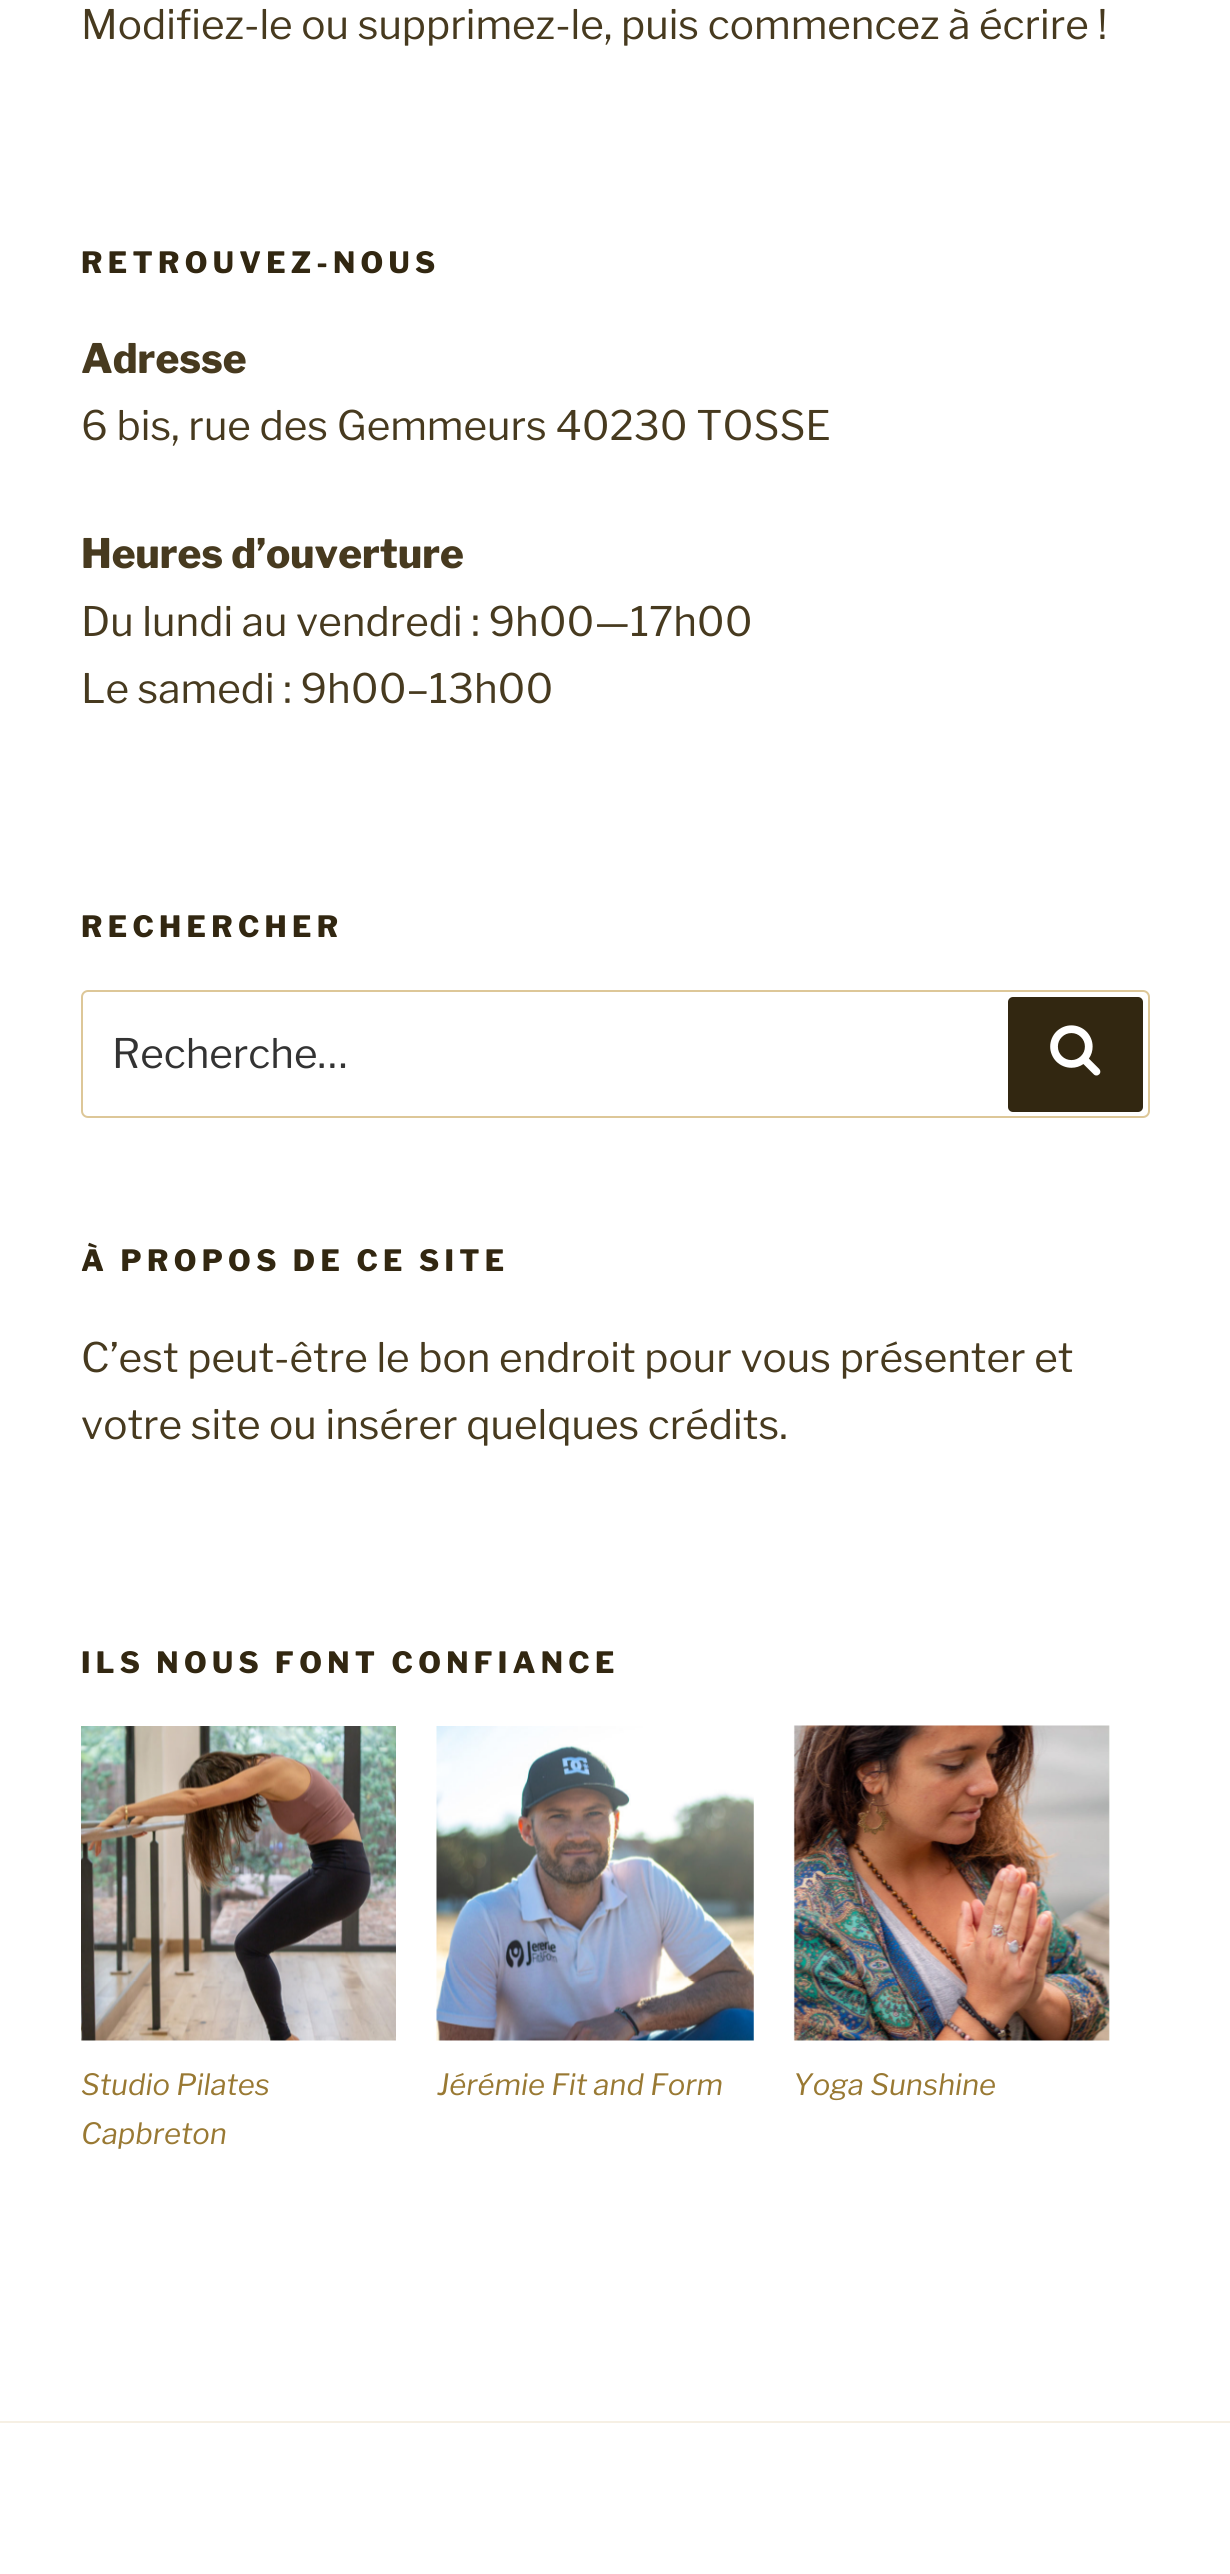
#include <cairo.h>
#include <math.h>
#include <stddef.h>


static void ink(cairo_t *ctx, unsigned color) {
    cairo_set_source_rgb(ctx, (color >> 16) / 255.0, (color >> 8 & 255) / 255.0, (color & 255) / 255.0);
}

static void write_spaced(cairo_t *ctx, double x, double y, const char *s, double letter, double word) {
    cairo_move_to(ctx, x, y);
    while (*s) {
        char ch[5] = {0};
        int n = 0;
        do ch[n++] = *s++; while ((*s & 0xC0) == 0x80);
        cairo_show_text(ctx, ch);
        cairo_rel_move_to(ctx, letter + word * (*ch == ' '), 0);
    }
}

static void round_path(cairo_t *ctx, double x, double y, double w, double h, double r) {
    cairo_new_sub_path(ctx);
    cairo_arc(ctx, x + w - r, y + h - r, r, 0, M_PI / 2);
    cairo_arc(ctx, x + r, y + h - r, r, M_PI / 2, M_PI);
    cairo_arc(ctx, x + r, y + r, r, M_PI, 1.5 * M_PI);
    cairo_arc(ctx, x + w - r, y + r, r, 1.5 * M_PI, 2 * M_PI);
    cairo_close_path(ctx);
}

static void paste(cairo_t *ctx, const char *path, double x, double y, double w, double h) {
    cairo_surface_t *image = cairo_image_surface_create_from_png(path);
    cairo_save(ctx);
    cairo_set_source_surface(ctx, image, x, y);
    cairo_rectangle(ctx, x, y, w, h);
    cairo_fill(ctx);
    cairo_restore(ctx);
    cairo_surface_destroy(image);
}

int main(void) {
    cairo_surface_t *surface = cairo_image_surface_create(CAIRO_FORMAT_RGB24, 1230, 2574);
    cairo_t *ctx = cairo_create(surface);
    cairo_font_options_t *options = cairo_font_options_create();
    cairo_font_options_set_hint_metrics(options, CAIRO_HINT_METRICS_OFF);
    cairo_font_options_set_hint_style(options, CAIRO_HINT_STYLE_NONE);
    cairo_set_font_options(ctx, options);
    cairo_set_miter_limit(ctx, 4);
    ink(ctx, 0xFFFFFF);
    cairo_paint(ctx);
    cairo_select_font_face(ctx, "Libre Franklin Thin", CAIRO_FONT_SLANT_NORMAL, CAIRO_FONT_WEIGHT_NORMAL);
    cairo_set_font_size(ctx, 40.5);
    ink(ctx, 0x473A1F);
    cairo_move_to(ctx, 81, 39);
    cairo_show_text(ctx, "Modifiez-le ou supprimez-le, puis commencez à écrire !");
    cairo_select_font_face(ctx, "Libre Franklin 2 Thin", CAIRO_FONT_SLANT_NORMAL, CAIRO_FONT_WEIGHT_NORMAL);
    cairo_set_font_size(ctx, 29.25);
    ink(ctx, 0x322711);
    write_spaced(ctx, 81, 273, "RETROUVEZ-NOUS", 5.3, 0);
    cairo_set_font_size(ctx, 40.5);
    ink(ctx, 0x473A1F);
    cairo_move_to(ctx, 81, 373);
    cairo_show_text(ctx, "Adresse");
    cairo_select_font_face(ctx, "Libre Franklin Thin", CAIRO_FONT_SLANT_NORMAL, CAIRO_FONT_WEIGHT_NORMAL);
    cairo_move_to(ctx, 81, 440);
    cairo_show_text(ctx, "6 bis, rue des Gemmeurs 40230 TOSSE");
    cairo_select_font_face(ctx, "Libre Franklin 2 Thin", CAIRO_FONT_SLANT_NORMAL, CAIRO_FONT_WEIGHT_NORMAL);
    cairo_move_to(ctx, 81, 568);
    cairo_show_text(ctx, "Heures d’ouverture");
    cairo_select_font_face(ctx, "Libre Franklin Thin", CAIRO_FONT_SLANT_NORMAL, CAIRO_FONT_WEIGHT_NORMAL);
    cairo_move_to(ctx, 81, 636);
    cairo_show_text(ctx, "Du lundi au vendredi : 9h00—17h00");
    cairo_move_to(ctx, 81, 703);
    cairo_show_text(ctx, "Le samedi : 9h00–13h00");
    cairo_select_font_face(ctx, "Libre Franklin 2 Thin", CAIRO_FONT_SLANT_NORMAL, CAIRO_FONT_WEIGHT_NORMAL);
    cairo_set_font_size(ctx, 29.25);
    ink(ctx, 0x322711);
    write_spaced(ctx, 81, 937, "RECHERCHER", 5.3, 0);
    round_path(ctx, 82, 991, 1067, 126, 6);
    ink(ctx, 0xDDC798);
    cairo_stroke(ctx);
    cairo_select_font_face(ctx, "Libre Franklin Thin", CAIRO_FONT_SLANT_NORMAL, CAIRO_FONT_WEIGHT_NORMAL);
    cairo_set_font_size(ctx, 40.5);
    ink(ctx, 0x333333);
    cairo_move_to(ctx, 112, 1068);
    cairo_show_text(ctx, "Recherche…");
    ink(ctx, 0x322711);
    round_path(ctx, 1008, 997, 135, 115, 5);
    cairo_fill(ctx);
    paste(ctx, "media/1.png", 1050, 1025, 51, 51);
    cairo_select_font_face(ctx, "Libre Franklin 2 Thin", CAIRO_FONT_SLANT_NORMAL, CAIRO_FONT_WEIGHT_NORMAL);
    cairo_set_font_size(ctx, 29.25);
    write_spaced(ctx, 81, 1271, "À PROPOS DE CE SITE", 5.3, 0);
    cairo_select_font_face(ctx, "Libre Franklin Thin", CAIRO_FONT_SLANT_NORMAL, CAIRO_FONT_WEIGHT_NORMAL);
    cairo_set_font_size(ctx, 40.5);
    ink(ctx, 0x473A1F);
    cairo_move_to(ctx, 81, 1372);
    cairo_show_text(ctx, "C’est peut-être le bon endroit pour vous présenter et");
    cairo_move_to(ctx, 81, 1439);
    cairo_show_text(ctx, "votre site ou insérer quelques crédits.");
    cairo_select_font_face(ctx, "Libre Franklin 2 Thin", CAIRO_FONT_SLANT_NORMAL, CAIRO_FONT_WEIGHT_NORMAL);
    cairo_set_font_size(ctx, 29.25);
    ink(ctx, 0x322711);
    write_spaced(ctx, 81, 1673, "ILS NOUS FONT CONFIANCE", 5.3, 0);
    paste(ctx, "media/2.png", 81, 1726, 315, 315);
    cairo_select_font_face(ctx, "Libre Franklin Thin", CAIRO_FONT_SLANT_ITALIC, CAIRO_FONT_WEIGHT_NORMAL);
    ink(ctx, 0x997933);
    cairo_move_to(ctx, 81, 2095);
    cairo_show_text(ctx, "Studio Pilates");
    cairo_move_to(ctx, 81, 2144);
    cairo_show_text(ctx, "Capbreton");
    paste(ctx, "media/3.png", 436, 1726, 318, 315);
    cairo_move_to(ctx, 437, 2095);
    cairo_show_text(ctx, "Jérémie Fit and Form");
    paste(ctx, "media/4.png", 793, 1725, 317, 316);
    cairo_move_to(ctx, 793, 2095);
    cairo_show_text(ctx, "Yoga Sunshine");
    ink(ctx, 0xF6F0E4);
    cairo_rectangle(ctx, 0, 2421, 1230, 2);
    cairo_fill(ctx);
    cairo_surface_write_to_png(surface, "image.png");
    cairo_font_options_destroy(options);
    cairo_destroy(ctx);
    cairo_surface_destroy(surface);
    return 0;
}
